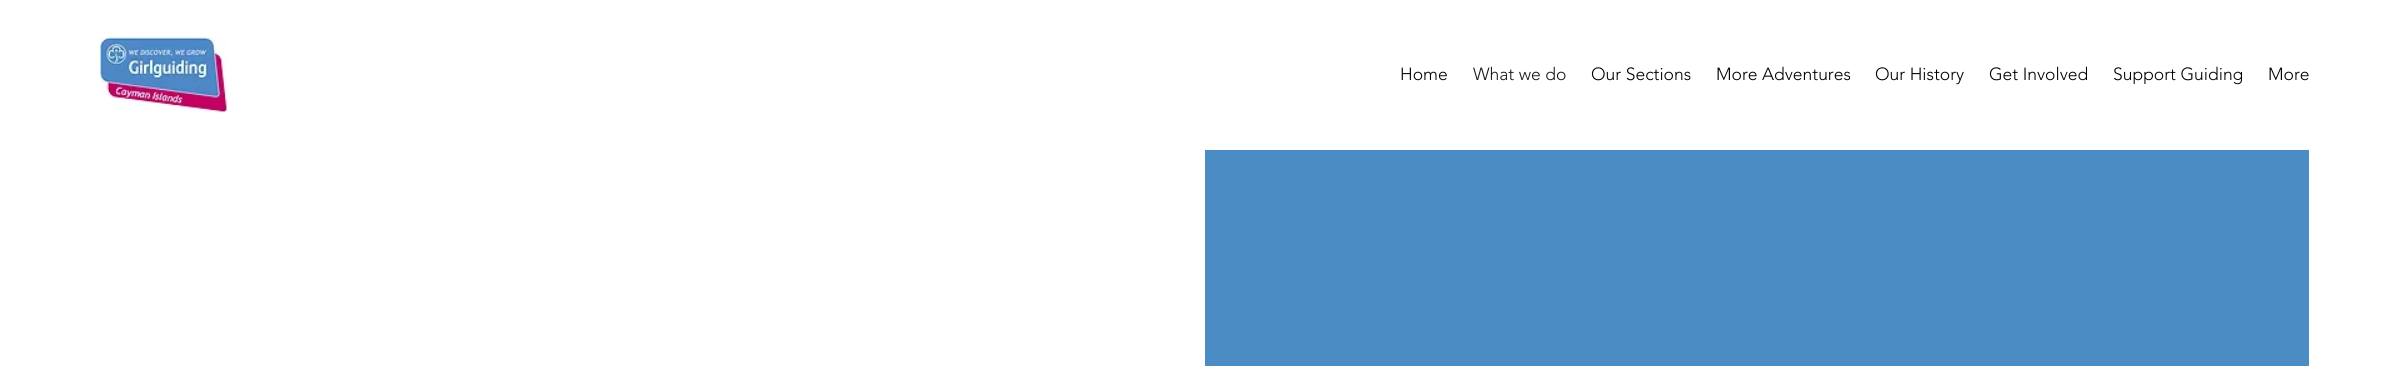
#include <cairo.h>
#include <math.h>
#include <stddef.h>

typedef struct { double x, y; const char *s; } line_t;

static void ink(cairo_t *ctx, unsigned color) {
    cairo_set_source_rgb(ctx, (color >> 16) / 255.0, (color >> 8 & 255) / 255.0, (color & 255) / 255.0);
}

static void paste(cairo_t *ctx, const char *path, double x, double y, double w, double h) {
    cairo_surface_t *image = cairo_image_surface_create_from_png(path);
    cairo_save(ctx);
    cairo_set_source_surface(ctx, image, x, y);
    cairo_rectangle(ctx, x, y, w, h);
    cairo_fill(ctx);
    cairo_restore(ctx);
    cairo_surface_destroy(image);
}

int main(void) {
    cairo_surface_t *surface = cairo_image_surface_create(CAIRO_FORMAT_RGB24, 2408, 366);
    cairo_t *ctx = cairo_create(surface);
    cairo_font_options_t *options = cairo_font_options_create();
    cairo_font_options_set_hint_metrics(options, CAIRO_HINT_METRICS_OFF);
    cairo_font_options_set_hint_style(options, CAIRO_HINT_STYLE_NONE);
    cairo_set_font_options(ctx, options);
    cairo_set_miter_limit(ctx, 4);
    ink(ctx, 0xFFFFFF);
    cairo_paint(ctx);
    paste(ctx, "media/1.png", 100, 37, 128, 76);
    cairo_select_font_face(ctx, "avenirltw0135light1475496 Light", CAIRO_FONT_SLANT_NORMAL, CAIRO_FONT_WEIGHT_NORMAL);
    cairo_set_font_size(ctx, 17.5);
    ink(ctx, 0x000000);
    cairo_move_to(ctx, 1400, 80);
    cairo_show_text(ctx, "Home");
    ink(ctx, 0x161616);
    cairo_move_to(ctx, 1473, 80);
    cairo_show_text(ctx, "What we do");
    ink(ctx, 0x000000);
    {
        static const line_t items[] = {
            {1591, 80, "Our Sections"},
            {1716, 80, "More Adventures"},
            {1875, 80, "Our History"},
            {1989, 80, "Get Involved"},
            {2113, 80, "Support Guiding"},
            {2268, 80, "More"},
        };
        for (size_t i = 0; i < sizeof items / sizeof *items; i++) {
            cairo_move_to(ctx, items[i].x, items[i].y);
            cairo_show_text(ctx, items[i].s);
        }
    }
    ink(ctx, 0x4C8CC4);
    cairo_rectangle(ctx, 1205, 150, 1104, 216);
    cairo_fill(ctx);
    cairo_surface_write_to_png(surface, "image.png");
    cairo_font_options_destroy(options);
    cairo_destroy(ctx);
    cairo_surface_destroy(surface);
    return 0;
}
